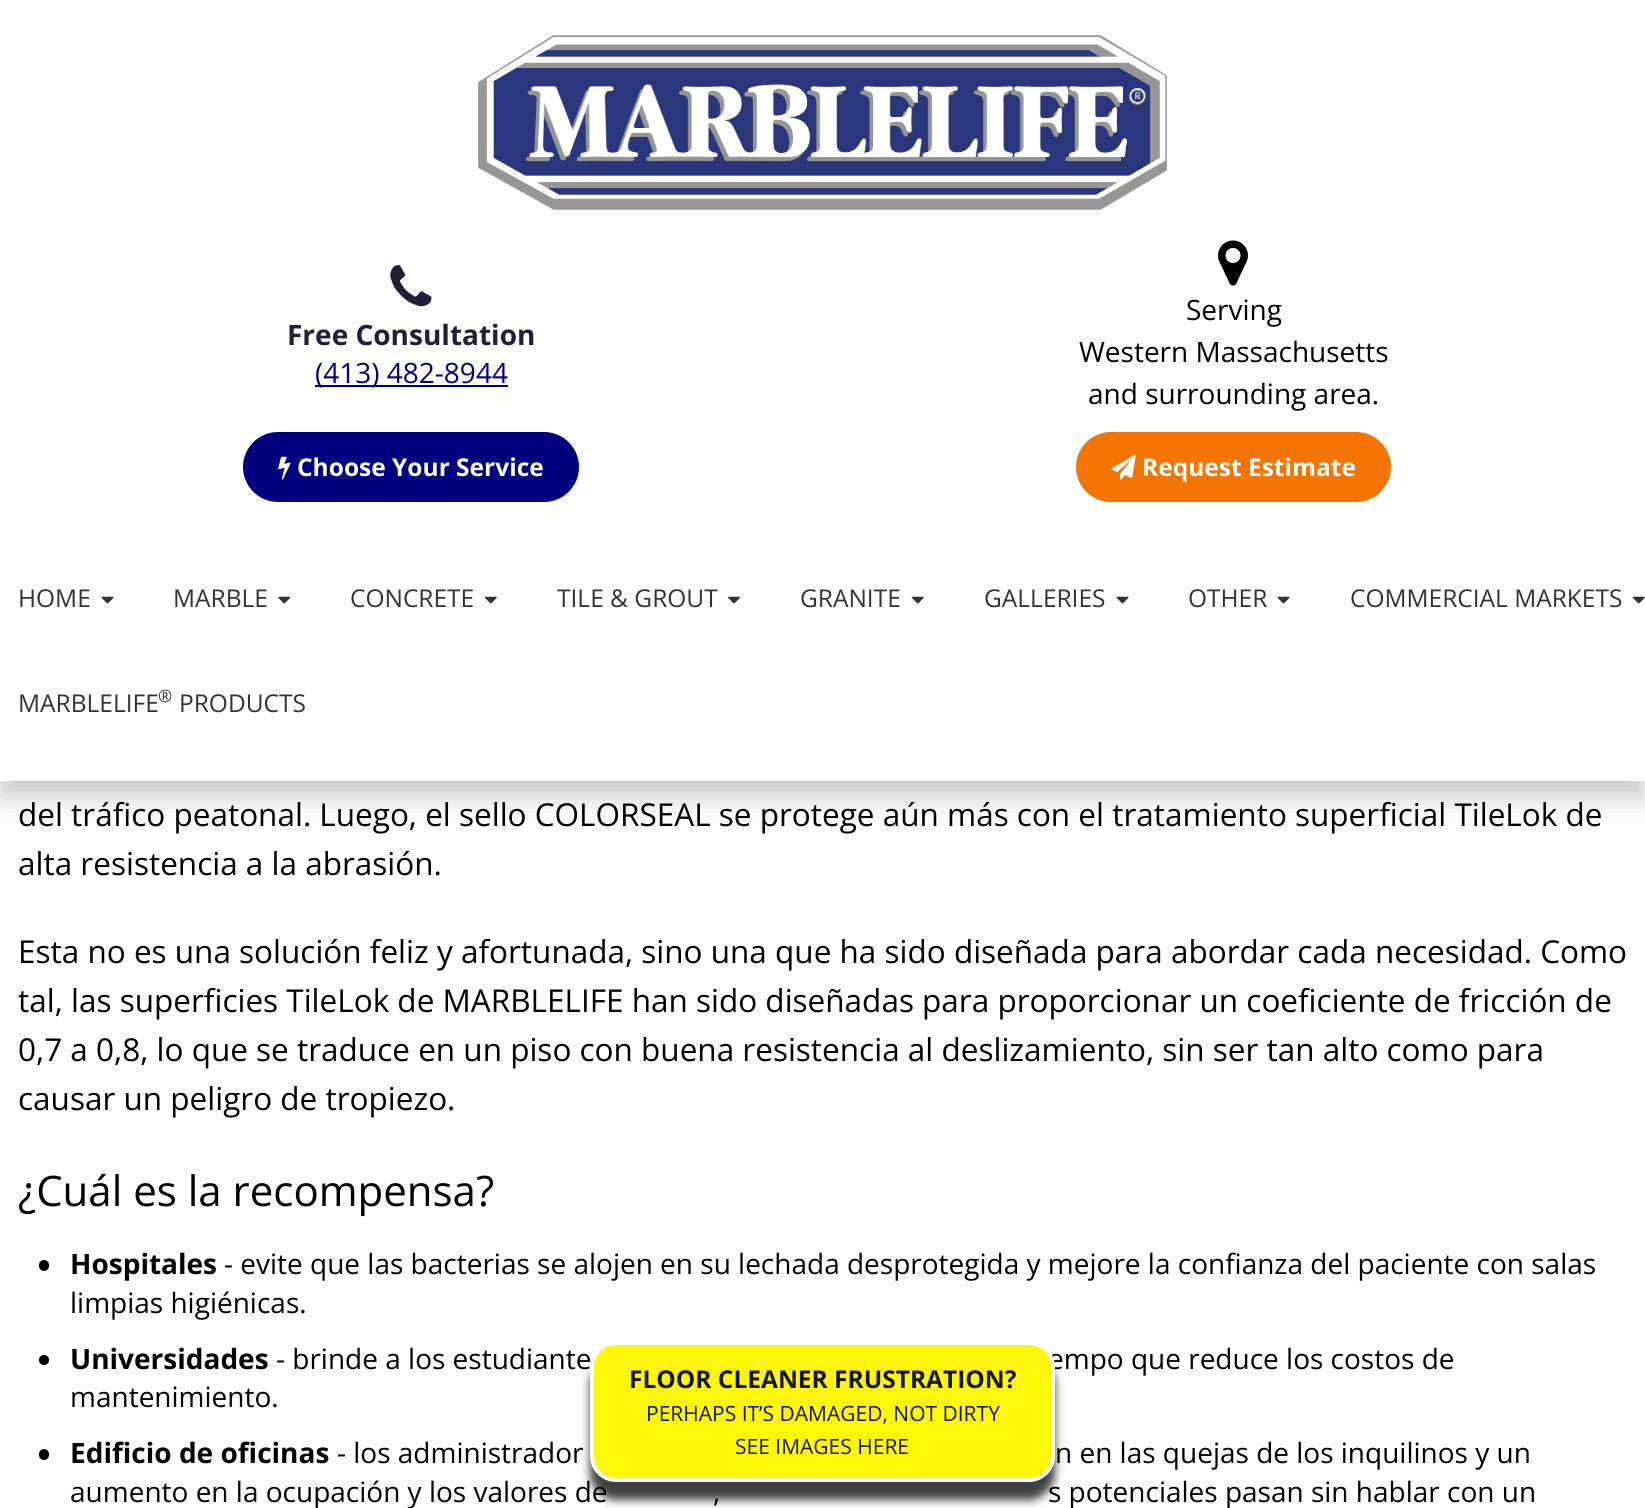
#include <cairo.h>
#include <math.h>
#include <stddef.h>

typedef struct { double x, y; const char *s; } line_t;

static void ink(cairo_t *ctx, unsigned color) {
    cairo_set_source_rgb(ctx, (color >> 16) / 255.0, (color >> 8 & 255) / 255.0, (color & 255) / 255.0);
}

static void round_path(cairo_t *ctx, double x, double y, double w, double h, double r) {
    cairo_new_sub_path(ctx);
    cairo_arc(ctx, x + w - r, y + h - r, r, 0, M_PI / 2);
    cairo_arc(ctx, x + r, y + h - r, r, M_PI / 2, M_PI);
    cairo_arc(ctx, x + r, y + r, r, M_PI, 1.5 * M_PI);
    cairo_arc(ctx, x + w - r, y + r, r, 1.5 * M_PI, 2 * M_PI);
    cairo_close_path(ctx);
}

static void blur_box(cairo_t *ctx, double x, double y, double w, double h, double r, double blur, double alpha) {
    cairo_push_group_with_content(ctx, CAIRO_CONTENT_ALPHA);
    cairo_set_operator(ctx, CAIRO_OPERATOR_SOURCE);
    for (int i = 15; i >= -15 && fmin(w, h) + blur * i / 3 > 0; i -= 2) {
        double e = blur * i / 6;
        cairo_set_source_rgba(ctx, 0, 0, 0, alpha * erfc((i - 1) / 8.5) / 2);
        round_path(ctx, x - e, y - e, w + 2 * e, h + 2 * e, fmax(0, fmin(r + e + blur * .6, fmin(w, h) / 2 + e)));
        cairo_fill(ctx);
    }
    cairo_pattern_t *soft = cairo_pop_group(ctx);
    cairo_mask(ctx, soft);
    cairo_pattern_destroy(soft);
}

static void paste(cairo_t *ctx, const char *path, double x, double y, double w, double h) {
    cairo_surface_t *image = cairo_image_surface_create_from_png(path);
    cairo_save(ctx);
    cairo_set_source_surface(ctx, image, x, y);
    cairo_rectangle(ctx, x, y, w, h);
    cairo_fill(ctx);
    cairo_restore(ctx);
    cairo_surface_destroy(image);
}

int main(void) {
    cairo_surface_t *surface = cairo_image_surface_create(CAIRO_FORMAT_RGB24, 1645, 1508);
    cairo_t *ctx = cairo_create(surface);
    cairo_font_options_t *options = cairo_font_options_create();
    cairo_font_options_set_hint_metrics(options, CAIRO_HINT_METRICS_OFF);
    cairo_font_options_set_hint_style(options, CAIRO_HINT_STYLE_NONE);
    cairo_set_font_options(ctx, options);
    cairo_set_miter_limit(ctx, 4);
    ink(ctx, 0xFFFFFF);
    cairo_paint(ctx);
    cairo_save(ctx);
    cairo_set_fill_rule(ctx, CAIRO_FILL_RULE_EVEN_ODD);
    cairo_new_path(ctx);
    cairo_move_to(ctx, 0, 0);
    cairo_line_to(ctx, 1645, 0);
    cairo_line_to(ctx, 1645, 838);
    cairo_line_to(ctx, 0, 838);
    cairo_close_path(ctx);
    cairo_move_to(ctx, 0, 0);
    cairo_line_to(ctx, 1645, 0);
    cairo_line_to(ctx, 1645, 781);
    cairo_line_to(ctx, 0, 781);
    cairo_close_path(ctx);
    cairo_clip(ctx);
    ink(ctx, 0x000000);
    blur_box(ctx, 0, 18, 1645, 780, 0, 13, 0.2);
    cairo_restore(ctx);
    cairo_set_source_rgba(ctx, 1, 1, 1, 0.98);
    cairo_rectangle(ctx, 0, 780, 1645, 1);
    cairo_fill(ctx);
    paste(ctx, "media/1.png", 478, 35, 690, 175);
    paste(ctx, "media/2.png", 390, 265, 42, 42);
    cairo_select_font_face(ctx, "Open Sans", CAIRO_FONT_SLANT_NORMAL, CAIRO_FONT_WEIGHT_BOLD);
    cairo_set_font_size(ctx, 28);
    ink(ctx, 0x1F1F37);
    cairo_move_to(ctx, 287, 345);
    cairo_show_text(ctx, "Free Consultation");
    ink(ctx, 0x00007E);
    cairo_rectangle(ctx, 315, 385, 193, 2);
    cairo_fill(ctx);
    cairo_select_font_face(ctx, "Open Sans", CAIRO_FONT_SLANT_NORMAL, CAIRO_FONT_WEIGHT_NORMAL);
    cairo_move_to(ctx, 315, 383);
    cairo_show_text(ctx, "(413) 482-8944");
    paste(ctx, "media/3.png", 1218, 240, 30, 46);
    ink(ctx, 0x000000);
    {
        static const line_t items[] = {
            {1186, 320, "Serving"},
            {1079, 362, "Western Massachusetts"},
            {1088, 404, "and surrounding area."},
        };
        for (size_t i = 0; i < sizeof items / sizeof *items; i++) {
            cairo_move_to(ctx, items[i].x, items[i].y);
            cairo_show_text(ctx, items[i].s);
        }
    }
    ink(ctx, 0x00007E);
    round_path(ctx, 243, 432, 336, 70, 35);
    cairo_fill(ctx);
    paste(ctx, "media/4.png", 278, 456, 13, 24);
    cairo_select_font_face(ctx, "Open Sans", CAIRO_FONT_SLANT_NORMAL, CAIRO_FONT_WEIGHT_BOLD);
    cairo_set_font_size(ctx, 24.5);
    ink(ctx, 0xFFFFFF);
    cairo_move_to(ctx, 297, 476);
    cairo_show_text(ctx, "Choose Your Service");
    ink(ctx, 0xF47503);
    round_path(ctx, 1076, 432, 315, 70, 35);
    cairo_fill(ctx);
    paste(ctx, "media/5.png", 1111, 455, 25, 25);
    ink(ctx, 0xFFFFFF);
    cairo_move_to(ctx, 1142, 476);
    cairo_show_text(ctx, "Request Estimate");
    cairo_select_font_face(ctx, "Open Sans", CAIRO_FONT_SLANT_NORMAL, CAIRO_FONT_WEIGHT_NORMAL);
    ink(ctx, 0x333333);
    cairo_move_to(ctx, 18, 607);
    cairo_show_text(ctx, "HOME");
    paste(ctx, "media/6.png", 101, 596, 13, 8);
    cairo_move_to(ctx, 173, 607);
    cairo_show_text(ctx, "MARBLE");
    paste(ctx, "media/7.png", 278, 596, 13, 8);
    cairo_move_to(ctx, 350, 607);
    cairo_show_text(ctx, "CONCRETE");
    paste(ctx, "media/8.png", 484, 596, 13, 8);
    cairo_move_to(ctx, 557, 607);
    cairo_show_text(ctx, "TILE & GROUT");
    paste(ctx, "media/9.png", 728, 596, 12, 8);
    cairo_move_to(ctx, 800, 607);
    cairo_show_text(ctx, "GRANITE");
    paste(ctx, "media/8.png", 911, 596, 13, 8);
    cairo_move_to(ctx, 984, 607);
    cairo_show_text(ctx, "GALLERIES");
    paste(ctx, "media/6.png", 1116, 596, 13, 8);
    cairo_move_to(ctx, 1188, 607);
    cairo_show_text(ctx, "OTHER");
    paste(ctx, "media/6.png", 1277, 596, 13, 8);
    cairo_move_to(ctx, 1350, 607);
    cairo_show_text(ctx, "COMMERCIAL MARKETS");
    paste(ctx, "media/8.png", 1632, 596, 13, 8);
    cairo_move_to(ctx, 18, 712);
    cairo_show_text(ctx, "MARBLELIFE");
    cairo_set_font_size(ctx, 17);
    cairo_move_to(ctx, 158, 702);
    cairo_show_text(ctx, "®");
    cairo_set_font_size(ctx, 24.5);
    cairo_move_to(ctx, 179, 712);
    cairo_show_text(ctx, "PRODUCTS");
    cairo_set_font_size(ctx, 31.5);
    ink(ctx, 0x000000);
    {
        static const line_t items[] = {
            {18, 826, "del tráfico peatonal. Luego, el sello COLORSEAL se protege aún más con el tratamiento superficial TileLok de"},
            {18, 875, "alta resistencia a la abrasión."},
            {18, 963, "Esta no es una solución feliz y afortunada, sino una que ha sido diseñada para abordar cada necesidad. Como"},
            {18, 1012, "tal, las superficies TileLok de MARBLELIFE han sido diseñadas para proporcionar un coeficiente de fricción de"},
            {18, 1061, "0,7 a 0,8, lo que se traduce en un piso con buena resistencia al deslizamiento, sin ser tan alto como para"},
            {18, 1110, "causar un peligro de tropiezo."},
        };
        for (size_t i = 0; i < sizeof items / sizeof *items; i++) {
            cairo_move_to(ctx, items[i].x, items[i].y);
            cairo_show_text(ctx, items[i].s);
        }
    }
    cairo_set_font_size(ctx, 42);
    cairo_move_to(ctx, 18, 1206);
    cairo_show_text(ctx, "¿Cuál es la recompensa?");
    round_path(ctx, 39, 1260, 10, 11, 5);
    cairo_fill(ctx);
    cairo_select_font_face(ctx, "Open Sans", CAIRO_FONT_SLANT_NORMAL, CAIRO_FONT_WEIGHT_BOLD);
    cairo_set_font_size(ctx, 28);
    cairo_move_to(ctx, 70, 1274);
    cairo_show_text(ctx, "Hospitales");
    cairo_select_font_face(ctx, "Open Sans", CAIRO_FONT_SLANT_NORMAL, CAIRO_FONT_WEIGHT_NORMAL);
    cairo_move_to(ctx, 224, 1274);
    cairo_show_text(ctx, "- evite que las bacterias se alojen en su lechada desprotegida y mejore la confianza del paciente con salas");
    cairo_move_to(ctx, 70, 1313);
    cairo_show_text(ctx, "limpias higiénicas.");
    cairo_new_path(ctx);
    cairo_arc(ctx, 44, 1360, 5, 0, 2 * M_PI);
    cairo_fill(ctx);
    cairo_select_font_face(ctx, "Open Sans", CAIRO_FONT_SLANT_NORMAL, CAIRO_FONT_WEIGHT_BOLD);
    cairo_move_to(ctx, 70, 1369);
    cairo_show_text(ctx, "Universidades");
    cairo_select_font_face(ctx, "Open Sans", CAIRO_FONT_SLANT_NORMAL, CAIRO_FONT_WEIGHT_NORMAL);
    {
        static const line_t items[] = {
            {276, 1369, "- brinde a los estudiante"},
            {1048, 1369, "empo que reduce los costos de"},
            {70, 1407, "mantenimiento."},
        };
        for (size_t i = 0; i < sizeof items / sizeof *items; i++) {
            cairo_move_to(ctx, items[i].x, items[i].y);
            cairo_show_text(ctx, items[i].s);
        }
    }
    round_path(ctx, 39, 1449, 10, 11, 5);
    cairo_fill(ctx);
    cairo_select_font_face(ctx, "Open Sans", CAIRO_FONT_SLANT_NORMAL, CAIRO_FONT_WEIGHT_BOLD);
    cairo_move_to(ctx, 70, 1463);
    cairo_show_text(ctx, "Edificio de oficinas");
    cairo_select_font_face(ctx, "Open Sans", CAIRO_FONT_SLANT_NORMAL, CAIRO_FONT_WEIGHT_NORMAL);
    {
        static const line_t items[] = {
            {337, 1463, "- los administrador"},
            {1055, 1463, "n en las quejas de los inquilinos y un"},
            {70, 1502, "aumento en la ocupación y los valores de"},
            {713, 1502, ","},
            {1048, 1502, "s potenciales pasan sin hablar con un"},
        };
        for (size_t i = 0; i < sizeof items / sizeof *items; i++) {
            cairo_move_to(ctx, items[i].x, items[i].y);
            cairo_show_text(ctx, items[i].s);
        }
    }
    ink(ctx, 0x000000);
    blur_box(ctx, 590, 1358, 465, 142, 26, 4.5, 0.75);
    ink(ctx, 0xFFF708);
    round_path(ctx, 592, 1343, 461, 137, 24);
    cairo_fill_preserve(ctx);
    ink(ctx, 0xFFFFFF);
    cairo_set_line_width(ctx, 4);
    cairo_stroke(ctx);
    cairo_select_font_face(ctx, "Open Sans", CAIRO_FONT_SLANT_NORMAL, CAIRO_FONT_WEIGHT_BOLD);
    cairo_set_font_size(ctx, 24.5);
    ink(ctx, 0x171717);
    cairo_move_to(ctx, 629, 1388);
    cairo_show_text(ctx, "FLOOR CLEANER FRUSTRATION?");
    cairo_select_font_face(ctx, "Open Sans", CAIRO_FONT_SLANT_NORMAL, CAIRO_FONT_WEIGHT_NORMAL);
    cairo_set_font_size(ctx, 21);
    cairo_move_to(ctx, 646, 1421);
    cairo_show_text(ctx, "PERHAPS IT’S DAMAGED, NOT DIRTY");
    cairo_move_to(ctx, 735, 1454);
    cairo_show_text(ctx, "SEE IMAGES HERE");
    cairo_surface_write_to_png(surface, "image.png");
    cairo_font_options_destroy(options);
    cairo_destroy(ctx);
    cairo_surface_destroy(surface);
    return 0;
}
